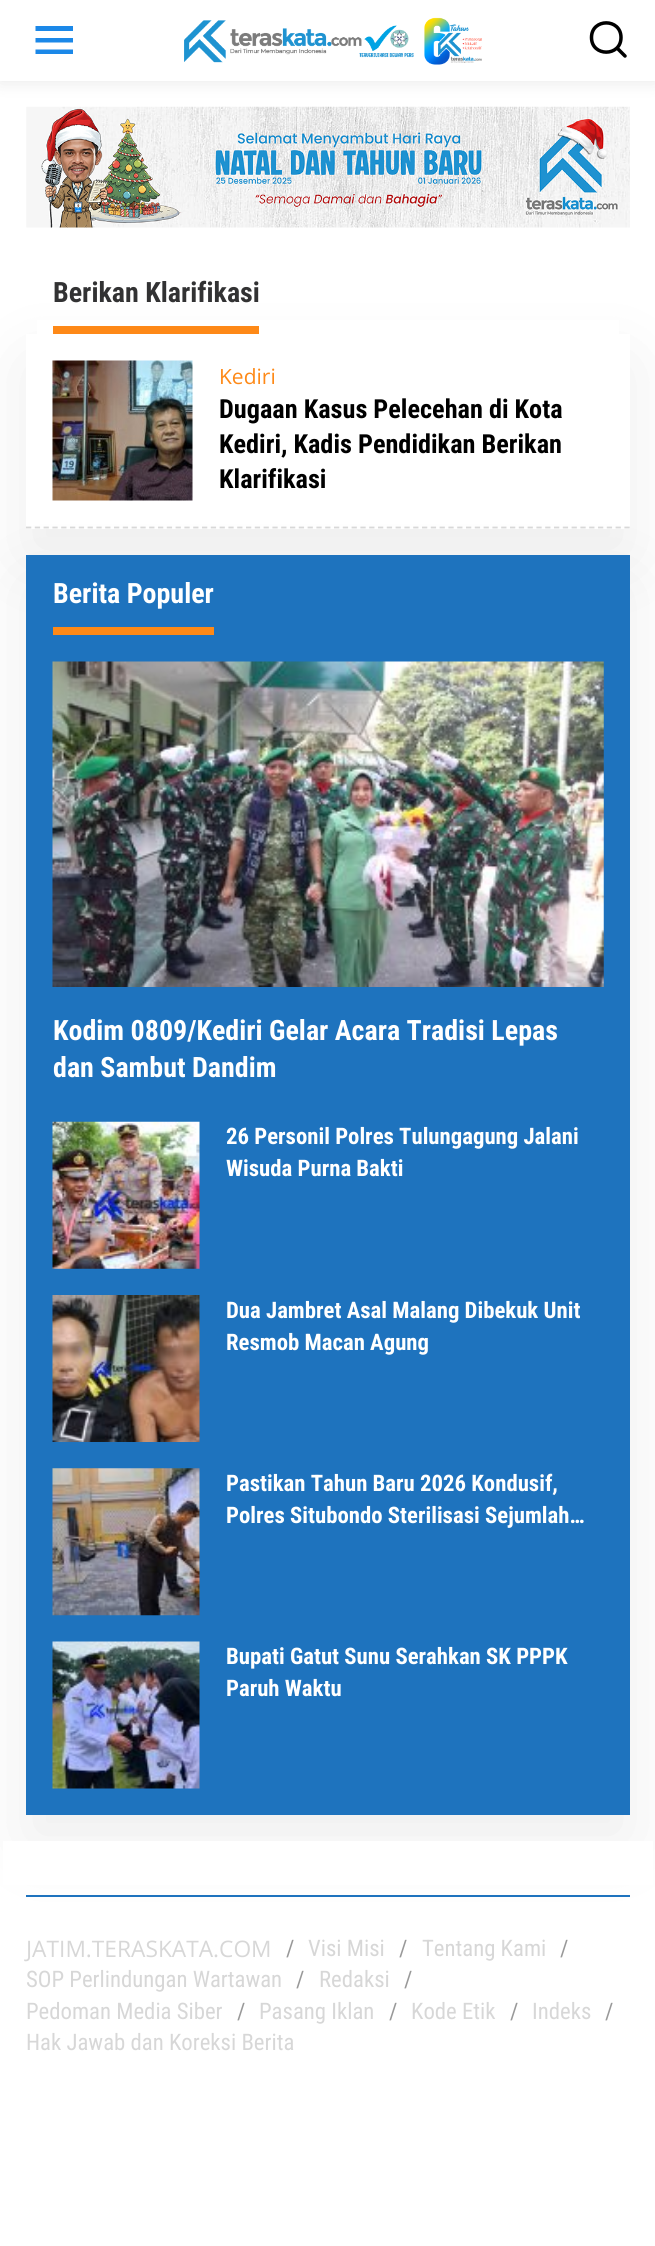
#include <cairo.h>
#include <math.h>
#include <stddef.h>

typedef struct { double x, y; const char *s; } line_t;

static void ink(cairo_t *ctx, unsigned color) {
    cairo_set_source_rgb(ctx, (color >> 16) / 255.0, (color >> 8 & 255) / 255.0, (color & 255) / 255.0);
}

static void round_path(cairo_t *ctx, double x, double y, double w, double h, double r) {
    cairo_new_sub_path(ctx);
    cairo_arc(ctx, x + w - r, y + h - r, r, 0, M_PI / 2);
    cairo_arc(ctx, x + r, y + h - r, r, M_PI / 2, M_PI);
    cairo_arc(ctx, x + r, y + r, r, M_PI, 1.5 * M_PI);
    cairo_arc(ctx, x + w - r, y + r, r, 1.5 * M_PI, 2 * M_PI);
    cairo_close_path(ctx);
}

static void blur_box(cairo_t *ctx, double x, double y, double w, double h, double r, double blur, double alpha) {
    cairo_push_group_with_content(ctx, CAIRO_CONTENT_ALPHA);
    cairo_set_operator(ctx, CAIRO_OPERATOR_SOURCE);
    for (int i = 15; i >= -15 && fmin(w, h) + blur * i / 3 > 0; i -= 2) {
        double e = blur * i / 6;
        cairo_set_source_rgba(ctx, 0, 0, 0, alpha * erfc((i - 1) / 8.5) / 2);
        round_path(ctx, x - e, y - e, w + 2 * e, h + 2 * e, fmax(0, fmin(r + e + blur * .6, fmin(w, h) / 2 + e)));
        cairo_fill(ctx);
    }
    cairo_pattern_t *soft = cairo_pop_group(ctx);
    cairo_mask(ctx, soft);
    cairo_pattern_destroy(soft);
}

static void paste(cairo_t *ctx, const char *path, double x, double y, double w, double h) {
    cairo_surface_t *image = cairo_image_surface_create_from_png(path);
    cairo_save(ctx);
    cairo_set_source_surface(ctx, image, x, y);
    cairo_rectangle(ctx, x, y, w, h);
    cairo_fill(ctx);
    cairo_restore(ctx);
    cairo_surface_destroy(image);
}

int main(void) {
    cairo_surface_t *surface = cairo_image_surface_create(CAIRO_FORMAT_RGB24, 655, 2246);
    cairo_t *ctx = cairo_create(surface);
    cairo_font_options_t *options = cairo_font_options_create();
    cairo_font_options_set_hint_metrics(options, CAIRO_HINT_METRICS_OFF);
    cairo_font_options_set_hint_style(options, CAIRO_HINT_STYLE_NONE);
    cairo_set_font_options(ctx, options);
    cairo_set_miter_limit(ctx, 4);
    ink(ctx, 0xFFFFFF);
    cairo_paint(ctx);
    paste(ctx, "media/2.png", 26, 106, 604, 122);
    ink(ctx, 0x000000);
    blur_box(ctx, 0, 0, 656, 81, 0, 9, 0.1);
    ink(ctx, 0xFFFFFF);
    cairo_rectangle(ctx, 0, 0, 655, 81);
    cairo_fill(ctx);
    ink(ctx, 0x1B88E8);
    cairo_new_path(ctx);
    cairo_move_to(ctx, 35.5, 26);
    cairo_line_to(ctx, 73, 26);
    cairo_line_to(ctx, 73, 31);
    cairo_line_to(ctx, 35.5, 31);
    cairo_close_path(ctx);
    cairo_move_to(ctx, 35.5, 38);
    cairo_line_to(ctx, 73, 38);
    cairo_line_to(ctx, 73, 42.5);
    cairo_line_to(ctx, 35.5, 42.5);
    cairo_close_path(ctx);
    cairo_move_to(ctx, 35.5, 49.5);
    cairo_line_to(ctx, 73, 49.5);
    cairo_line_to(ctx, 73, 54);
    cairo_line_to(ctx, 35.5, 54);
    cairo_close_path(ctx);
    cairo_fill(ctx);
    paste(ctx, "media/1.png", 184, 17, 298, 48);
    cairo_new_path(ctx);
    cairo_move_to(ctx, 625, 56);
    cairo_line_to(ctx, 617, 48);
    cairo_move_to(ctx, 621, 37.5);
    cairo_curve_to(ctx, 621, 57, 591.5, 57, 591.5, 37.5);
    cairo_curve_to(ctx, 591.5, 18, 621, 18, 621, 37.5);
    cairo_close_path(ctx);
    ink(ctx, 0x000000);
    cairo_set_line_width(ctx, 3.5);
    cairo_set_line_cap(ctx, CAIRO_LINE_CAP_ROUND);
    cairo_stroke(ctx);
    ink(ctx, 0x000000);
    blur_box(ctx, 26, 362, 604, 195, 0, 39.5, 0.07);
    ink(ctx, 0xFFFFFF);
    cairo_rectangle(ctx, 37, 320, 582, 14);
    cairo_fill(ctx);
    ink(ctx, 0xFE8917);
    cairo_rectangle(ctx, 53, 326, 206, 8);
    cairo_fill(ctx);
    cairo_select_font_face(ctx, "Roboto Condensed", CAIRO_FONT_SLANT_NORMAL, CAIRO_FONT_WEIGHT_BOLD);
    cairo_set_font_size(ctx, 28);
    ink(ctx, 0x323233);
    cairo_move_to(ctx, 53, 302);
    cairo_show_text(ctx, "Berikan Klarifikasi");
    ink(ctx, 0xFFFFFF);
    cairo_rectangle(ctx, 26, 334, 604, 195);
    cairo_fill(ctx);
    cairo_new_path(ctx);
    cairo_move_to(ctx, 26, 527.5);
    cairo_line_to(ctx, 630, 527.5);
    ink(ctx, 0xD9D9D9);
    cairo_set_line_width(ctx, 1.8);
    cairo_set_line_cap(ctx, CAIRO_LINE_CAP_BUTT);
    cairo_set_dash(ctx, (double[]){5.25, 3.55}, 2, 0);
    cairo_stroke(ctx);
    paste(ctx, "media/3.png", 52, 360, 141, 141);
    cairo_select_font_face(ctx, "Open Sans", CAIRO_FONT_SLANT_NORMAL, CAIRO_FONT_WEIGHT_NORMAL);
    cairo_set_font_size(ctx, 21);
    ink(ctx, 0xFE8917);
    cairo_move_to(ctx, 219, 384);
    cairo_show_text(ctx, "Kediri");
    cairo_select_font_face(ctx, "Roboto Condensed", CAIRO_FONT_SLANT_NORMAL, CAIRO_FONT_WEIGHT_BOLD);
    cairo_set_font_size(ctx, 26.25);
    ink(ctx, 0x000000);
    {
        static const line_t items[] = {
            {219, 418, "Dugaan Kasus Pelecehan di Kota"},
            {219, 453, "Kediri, Kadis Pendidikan Berikan"},
            {219, 488, "Klarifikasi"},
        };
        for (size_t i = 0; i < sizeof items / sizeof *items; i++) {
            cairo_move_to(ctx, items[i].x, items[i].y);
            cairo_show_text(ctx, items[i].s);
        }
    }
    ink(ctx, 0x000000);
    blur_box(ctx, 26, 583, 604, 1260, 0, 39.5, 0.07);
    ink(ctx, 0x1E73BE);
    cairo_rectangle(ctx, 26, 555, 604, 1260);
    cairo_fill(ctx);
    ink(ctx, 0xFE8917);
    cairo_rectangle(ctx, 53, 627, 161, 8);
    cairo_fill(ctx);
    cairo_set_font_size(ctx, 28);
    ink(ctx, 0xFFFFFF);
    cairo_move_to(ctx, 53, 603);
    cairo_show_text(ctx, "Berita Populer");
    paste(ctx, "media/4.png", 52, 661, 552, 326);
    cairo_move_to(ctx, 53, 1040);
    cairo_show_text(ctx, "Kodim 0809/Kediri Gelar Acara Tradisi Lepas");
    cairo_move_to(ctx, 53, 1077);
    cairo_show_text(ctx, "dan Sambut Dandim");
    paste(ctx, "media/5.png", 52, 1121, 148, 148);
    cairo_set_font_size(ctx, 22.75);
    cairo_move_to(ctx, 226, 1144);
    cairo_show_text(ctx, "26 Personil Polres Tulungagung Jalani");
    cairo_move_to(ctx, 226, 1176);
    cairo_show_text(ctx, "Wisuda Purna Bakti");
    paste(ctx, "media/6.png", 52, 1295, 148, 147);
    cairo_move_to(ctx, 226, 1318);
    cairo_show_text(ctx, "Dua Jambret Asal Malang Dibekuk Unit");
    cairo_move_to(ctx, 226, 1350);
    cairo_show_text(ctx, "Resmob Macan Agung");
    paste(ctx, "media/7.png", 52, 1468, 148, 148);
    cairo_move_to(ctx, 226, 1491);
    cairo_show_text(ctx, "Pastikan Tahun Baru 2026 Kondusif,");
    cairo_move_to(ctx, 226, 1523);
    cairo_show_text(ctx, "Polres Situbondo Sterilisasi Sejumlah…");
    paste(ctx, "media/8.png", 52, 1641, 148, 148);
    cairo_move_to(ctx, 226, 1664);
    cairo_show_text(ctx, "Bupati Gatut Sunu Serahkan SK PPPK");
    cairo_move_to(ctx, 226, 1696);
    cairo_show_text(ctx, "Paruh Waktu");
    cairo_rectangle(ctx, 3, 1841, 650, 44);
    cairo_fill(ctx);
    ink(ctx, 0x1E73BE);
    cairo_rectangle(ctx, 26, 1895, 604, 2);
    cairo_fill(ctx);
    cairo_select_font_face(ctx, "Roboto Condensed", CAIRO_FONT_SLANT_NORMAL, CAIRO_FONT_WEIGHT_NORMAL);
    ink(ctx, 0x999999);
    cairo_move_to(ctx, 286, 1956);
    cairo_show_text(ctx, "/");
    ink(ctx, 0xD7D7D7);
    cairo_move_to(ctx, 308, 1956);
    cairo_show_text(ctx, "Visi Misi");
    ink(ctx, 0x999999);
    cairo_move_to(ctx, 399, 1956);
    cairo_show_text(ctx, "/");
    ink(ctx, 0xD7D7D7);
    cairo_move_to(ctx, 422, 1956);
    cairo_show_text(ctx, "Tentang Kami");
    ink(ctx, 0x999999);
    cairo_move_to(ctx, 560, 1956);
    cairo_show_text(ctx, "/");
    ink(ctx, 0xD7D7D7);
    cairo_move_to(ctx, 26, 1987);
    cairo_show_text(ctx, "SOP Perlindungan Wartawan");
    ink(ctx, 0x999999);
    cairo_move_to(ctx, 296, 1987);
    cairo_show_text(ctx, "/");
    ink(ctx, 0xD7D7D7);
    cairo_move_to(ctx, 319, 1987);
    cairo_show_text(ctx, "Redaksi");
    ink(ctx, 0x999999);
    cairo_move_to(ctx, 404, 1987);
    cairo_show_text(ctx, "/");
    ink(ctx, 0xD7D7D7);
    cairo_move_to(ctx, 26, 2019);
    cairo_show_text(ctx, "Pedoman Media Siber");
    ink(ctx, 0x999999);
    cairo_move_to(ctx, 237, 2019);
    cairo_show_text(ctx, "/");
    ink(ctx, 0xD7D7D7);
    cairo_move_to(ctx, 259, 2019);
    cairo_show_text(ctx, "Pasang Iklan");
    ink(ctx, 0x999999);
    cairo_move_to(ctx, 389, 2019);
    cairo_show_text(ctx, "/");
    ink(ctx, 0xD7D7D7);
    cairo_move_to(ctx, 411, 2019);
    cairo_show_text(ctx, "Kode Etik");
    ink(ctx, 0x999999);
    cairo_move_to(ctx, 510, 2019);
    cairo_show_text(ctx, "/");
    ink(ctx, 0xD7D7D7);
    cairo_move_to(ctx, 532, 2019);
    cairo_show_text(ctx, "Indeks");
    ink(ctx, 0x999999);
    cairo_move_to(ctx, 605, 2019);
    cairo_show_text(ctx, "/");
    ink(ctx, 0xD7D7D7);
    cairo_move_to(ctx, 26, 2050);
    cairo_show_text(ctx, "Hak Jawab dan Koreksi Berita");
    cairo_select_font_face(ctx, "Open Sans", CAIRO_FONT_SLANT_NORMAL, CAIRO_FONT_WEIGHT_NORMAL);
    cairo_move_to(ctx, 26, 1957);
    cairo_show_text(ctx, "JATIM.TERASKATA.COM");
    cairo_surface_write_to_png(surface, "image.png");
    cairo_font_options_destroy(options);
    cairo_destroy(ctx);
    cairo_surface_destroy(surface);
    return 0;
}
